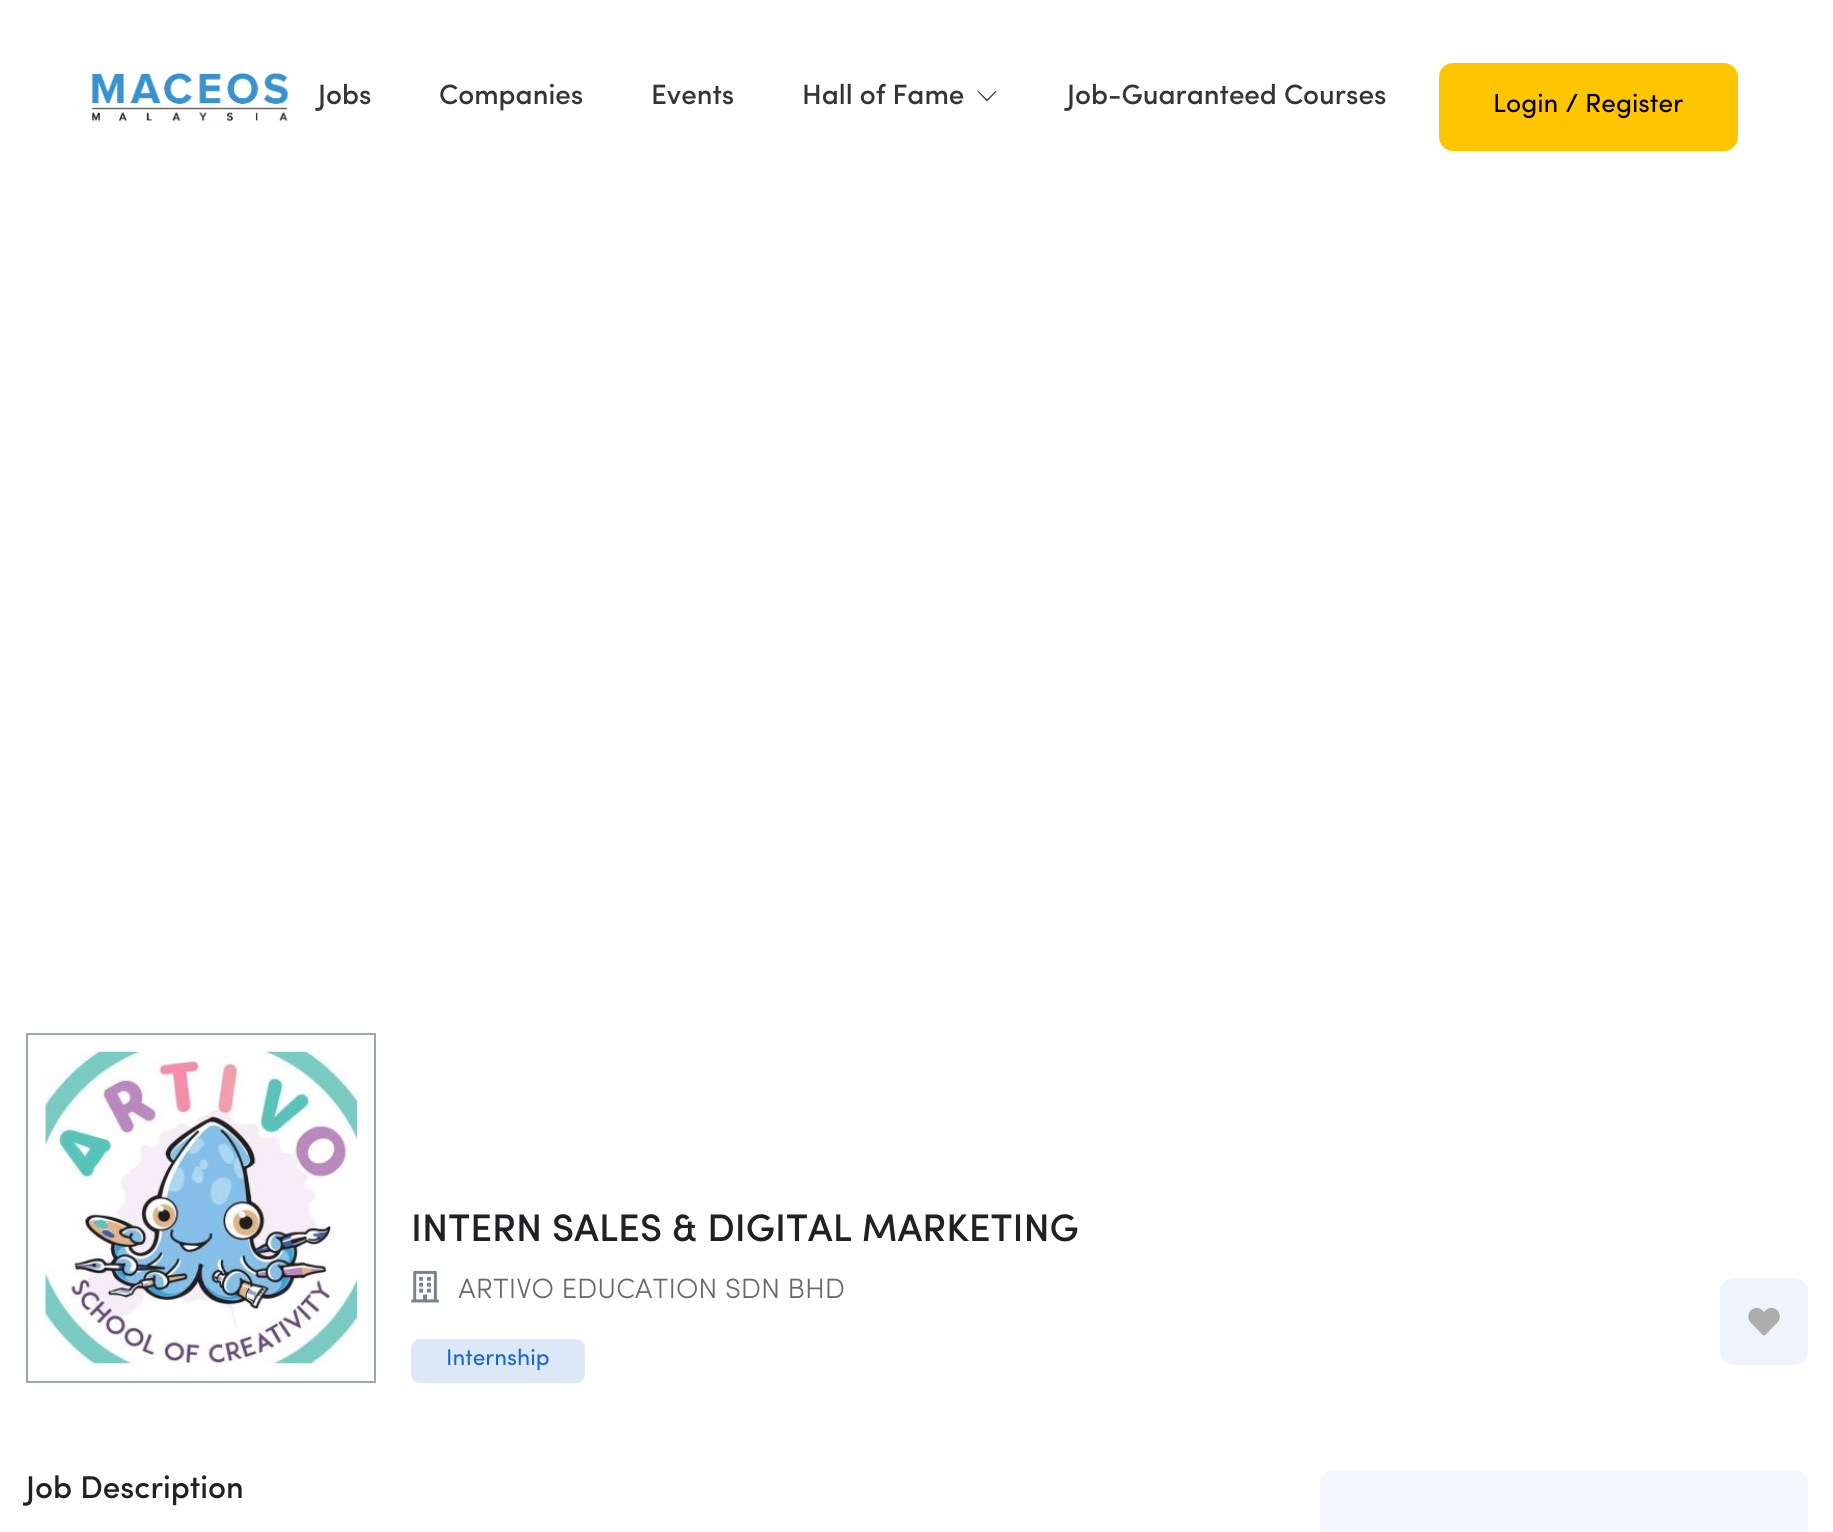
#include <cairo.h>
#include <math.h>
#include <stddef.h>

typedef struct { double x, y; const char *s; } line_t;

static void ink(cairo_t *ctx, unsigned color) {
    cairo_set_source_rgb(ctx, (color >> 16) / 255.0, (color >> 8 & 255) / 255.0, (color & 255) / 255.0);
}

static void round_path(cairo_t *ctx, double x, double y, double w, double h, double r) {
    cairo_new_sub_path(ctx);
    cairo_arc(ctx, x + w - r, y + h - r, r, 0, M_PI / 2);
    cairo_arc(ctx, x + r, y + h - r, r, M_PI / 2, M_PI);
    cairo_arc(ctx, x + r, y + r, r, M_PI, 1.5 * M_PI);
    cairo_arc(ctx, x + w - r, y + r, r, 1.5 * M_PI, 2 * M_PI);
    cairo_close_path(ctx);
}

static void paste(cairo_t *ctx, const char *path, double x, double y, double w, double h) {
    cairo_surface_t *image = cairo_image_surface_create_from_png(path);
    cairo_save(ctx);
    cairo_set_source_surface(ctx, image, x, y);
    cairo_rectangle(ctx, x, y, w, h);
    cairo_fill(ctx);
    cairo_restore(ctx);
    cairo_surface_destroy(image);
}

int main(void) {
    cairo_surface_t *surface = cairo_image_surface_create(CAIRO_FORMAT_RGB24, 1833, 1532);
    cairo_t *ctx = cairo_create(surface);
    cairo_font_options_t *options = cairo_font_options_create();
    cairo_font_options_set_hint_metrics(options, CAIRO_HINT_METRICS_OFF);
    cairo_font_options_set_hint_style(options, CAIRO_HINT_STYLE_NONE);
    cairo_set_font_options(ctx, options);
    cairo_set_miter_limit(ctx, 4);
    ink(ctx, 0xFFFFFF);
    cairo_paint(ctx);
    paste(ctx, "media/1.png", 91, 72, 198, 50);
    cairo_select_font_face(ctx, "Sofia Medium", CAIRO_FONT_SLANT_NORMAL, CAIRO_FONT_WEIGHT_NORMAL);
    cairo_set_font_size(ctx, 28);
    ink(ctx, 0x353535);
    {
        static const line_t items[] = {
            {318, 104, "Jobs"},
            {439, 104, "Companies"},
            {651, 104, "Events"},
            {802, 104, "Hall of Fame"},
        };
        for (size_t i = 0; i < sizeof items / sizeof *items; i++) {
            cairo_move_to(ctx, items[i].x, items[i].y);
            cairo_show_text(ctx, items[i].s);
        }
    }
    cairo_new_path(ctx);
    cairo_move_to(ctx, 996.5, 91.5);
    cairo_line_to(ctx, 987, 101.5);
    cairo_line_to(ctx, 977.5, 91.5);
    cairo_line_to(ctx, 978, 90.5);
    cairo_line_to(ctx, 987, 99.5);
    cairo_line_to(ctx, 996, 90.5);
    cairo_close_path(ctx);
    cairo_fill(ctx);
    cairo_move_to(ctx, 1067, 104);
    cairo_show_text(ctx, "Job-Guaranteed Courses");
    ink(ctx, 0xFFC600);
    round_path(ctx, 1439, 63, 299, 88, 14);
    cairo_fill(ctx);
    cairo_select_font_face(ctx, "Sofia", CAIRO_FONT_SLANT_NORMAL, CAIRO_FONT_WEIGHT_NORMAL);
    cairo_set_font_size(ctx, 26.25);
    ink(ctx, 0x010000);
    cairo_move_to(ctx, 1493, 112);
    cairo_show_text(ctx, "Login / Register");
    cairo_rectangle(ctx, 27, 1034, 348, 348);
    ink(ctx, 0x9CA6AE);
    cairo_stroke(ctx);
    paste(ctx, "media/2.png", 45, 1051, 312, 313);
    cairo_select_font_face(ctx, "Sofia Medium", CAIRO_FONT_SLANT_NORMAL, CAIRO_FONT_WEIGHT_NORMAL);
    cairo_set_font_size(ctx, 38.5);
    ink(ctx, 0x202124);
    cairo_move_to(ctx, 411, 1241);
    cairo_show_text(ctx, "INTERN SALES & DIGITAL MARKETING");
    paste(ctx, "media/3.png", 411, 1270, 28, 33);
    cairo_select_font_face(ctx, "Sofia Light", CAIRO_FONT_SLANT_NORMAL, CAIRO_FONT_WEIGHT_NORMAL);
    cairo_set_font_size(ctx, 28);
    ink(ctx, 0x696969);
    cairo_move_to(ctx, 458, 1298);
    cairo_show_text(ctx, "ARTIVO EDUCATION SDN BHD");
    ink(ctx, 0xDDE8F8);
    round_path(ctx, 411, 1339, 174, 44, 9);
    cairo_fill(ctx);
    cairo_select_font_face(ctx, "Sofia", CAIRO_FONT_SLANT_NORMAL, CAIRO_FONT_WEIGHT_NORMAL);
    cairo_set_font_size(ctx, 22.75);
    ink(ctx, 0x1967D2);
    cairo_move_to(ctx, 446, 1365);
    cairo_show_text(ctx, "Internship");
    ink(ctx, 0xEFF4FC);
    round_path(ctx, 1720, 1278, 88, 87, 14);
    cairo_fill(ctx);
    paste(ctx, "media/4.png", 1748, 1307, 32, 29);
    cairo_select_font_face(ctx, "Sofia Medium", CAIRO_FONT_SLANT_NORMAL, CAIRO_FONT_WEIGHT_NORMAL);
    cairo_set_font_size(ctx, 31.5);
    ink(ctx, 0x202124);
    cairo_move_to(ctx, 26, 1498);
    cairo_show_text(ctx, "Job Description");
    ink(ctx, 0xF5F7FC);
    round_path(ctx, 1320, 1470, 488, 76, 14);
    cairo_fill(ctx);
    cairo_surface_write_to_png(surface, "image.png");
    cairo_font_options_destroy(options);
    cairo_destroy(ctx);
    cairo_surface_destroy(surface);
    return 0;
}
